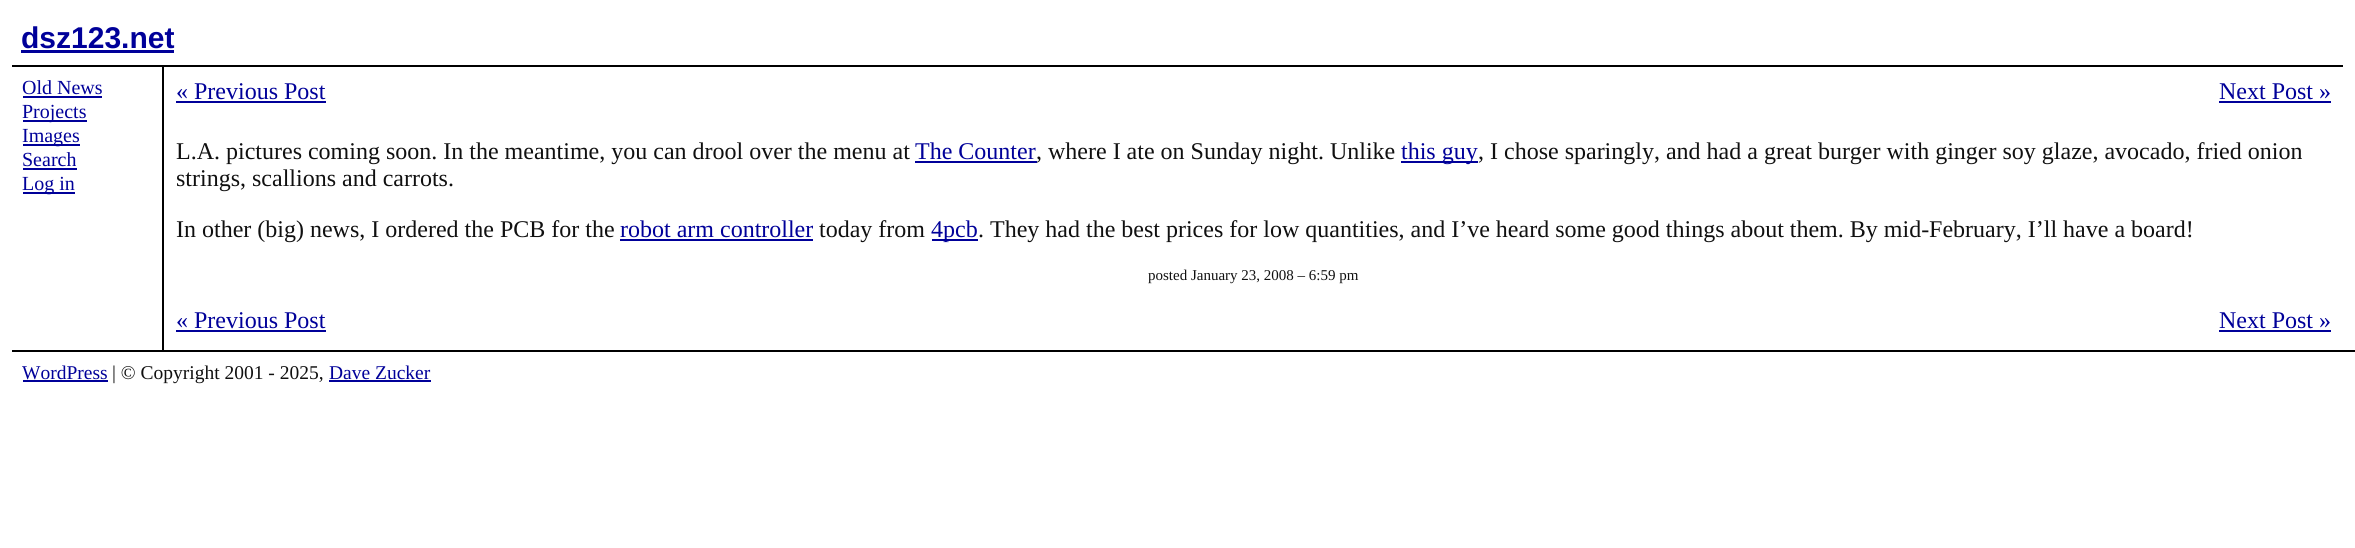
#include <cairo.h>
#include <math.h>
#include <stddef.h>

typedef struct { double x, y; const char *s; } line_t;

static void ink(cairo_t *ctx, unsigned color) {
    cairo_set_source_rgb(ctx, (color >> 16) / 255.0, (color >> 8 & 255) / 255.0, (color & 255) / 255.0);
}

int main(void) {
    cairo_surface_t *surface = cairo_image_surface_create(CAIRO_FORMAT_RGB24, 2355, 548);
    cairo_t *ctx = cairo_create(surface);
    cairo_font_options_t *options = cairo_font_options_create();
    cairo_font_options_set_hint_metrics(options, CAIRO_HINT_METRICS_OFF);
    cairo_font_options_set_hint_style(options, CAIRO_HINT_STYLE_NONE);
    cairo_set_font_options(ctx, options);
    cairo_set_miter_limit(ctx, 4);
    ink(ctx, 0xFFFFFF);
    cairo_paint(ctx);
    ink(ctx, 0x000000);
    cairo_rectangle(ctx, 12, 65, 2331, 2);
    cairo_fill(ctx);
    cairo_select_font_face(ctx, "Liberation Sans", CAIRO_FONT_SLANT_NORMAL, CAIRO_FONT_WEIGHT_BOLD);
    cairo_set_font_size(ctx, 30);
    ink(ctx, 0x000099);
    cairo_move_to(ctx, 21, 48);
    cairo_show_text(ctx, "dsz123.net");
    cairo_rectangle(ctx, 21, 50, 153, 3);
    cairo_fill(ctx);
    cairo_select_font_face(ctx, "Liberation Serif", CAIRO_FONT_SLANT_NORMAL, CAIRO_FONT_WEIGHT_NORMAL);
    cairo_set_font_size(ctx, 20);
    cairo_move_to(ctx, 22, 94);
    cairo_show_text(ctx, "Old News");
    cairo_rectangle(ctx, 23, 96, 79, 2);
    cairo_fill(ctx);
    cairo_rectangle(ctx, 23, 120, 64, 2);
    cairo_fill(ctx);
    cairo_move_to(ctx, 22, 118);
    cairo_show_text(ctx, "Projects");
    cairo_rectangle(ctx, 23, 144, 57, 2);
    cairo_fill(ctx);
    cairo_move_to(ctx, 22, 142);
    cairo_show_text(ctx, "Images");
    cairo_move_to(ctx, 22, 166);
    cairo_show_text(ctx, "Search");
    cairo_rectangle(ctx, 23, 168, 54, 2);
    cairo_fill(ctx);
    cairo_rectangle(ctx, 23, 192, 52, 2);
    cairo_fill(ctx);
    cairo_move_to(ctx, 22, 190);
    cairo_show_text(ctx, "Log in");
    ink(ctx, 0x000000);
    cairo_rectangle(ctx, 162, 66, 2, 284);
    cairo_fill(ctx);
    cairo_set_font_size(ctx, 24);
    ink(ctx, 0x000099);
    cairo_move_to(ctx, 176, 99);
    cairo_show_text(ctx, "« Previous Post");
    cairo_rectangle(ctx, 176, 101, 150, 2);
    cairo_fill(ctx);
    cairo_move_to(ctx, 2219, 99);
    cairo_show_text(ctx, "Next Post »");
    cairo_rectangle(ctx, 2219, 101, 112, 2);
    cairo_fill(ctx);
    ink(ctx, 0x101010);
    cairo_move_to(ctx, 176, 159);
    cairo_show_text(ctx, "L.A. pictures coming soon. In the meantime, you can drool over the menu at");
    ink(ctx, 0x000099);
    cairo_move_to(ctx, 915, 159);
    cairo_show_text(ctx, "The Counter");
    cairo_rectangle(ctx, 915, 161, 122, 2);
    cairo_fill(ctx);
    ink(ctx, 0x101010);
    cairo_move_to(ctx, 1036, 159);
    cairo_show_text(ctx, ", where I ate on Sunday night. Unlike");
    ink(ctx, 0x000099);
    cairo_rectangle(ctx, 1401, 161, 77, 2);
    cairo_fill(ctx);
    cairo_move_to(ctx, 1401, 159);
    cairo_show_text(ctx, "this guy");
    ink(ctx, 0x101010);
    {
        static const line_t items[] = {
            {1478, 159, ", I chose sparingly, and had a great burger with ginger soy glaze, avocado, fried onion"},
            {176, 186, "strings, scallions and carrots."},
            {176, 237, "In other (big) news, I ordered the PCB for the"},
        };
        for (size_t i = 0; i < sizeof items / sizeof *items; i++) {
            cairo_move_to(ctx, items[i].x, items[i].y);
            cairo_show_text(ctx, items[i].s);
        }
    }
    ink(ctx, 0x000099);
    cairo_move_to(ctx, 620, 237);
    cairo_show_text(ctx, "robot arm controller");
    cairo_rectangle(ctx, 620, 239, 193, 2);
    cairo_fill(ctx);
    ink(ctx, 0x101010);
    cairo_move_to(ctx, 819, 237);
    cairo_show_text(ctx, "today from");
    ink(ctx, 0x000099);
    cairo_rectangle(ctx, 932, 239, 46, 2);
    cairo_fill(ctx);
    cairo_move_to(ctx, 931, 237);
    cairo_show_text(ctx, "4pcb");
    ink(ctx, 0x101010);
    cairo_move_to(ctx, 978, 237);
    cairo_show_text(ctx, ". They had the best prices for low quantities, and I’ve heard some good things about them. By mid-February, I’ll have a board!");
    cairo_set_font_size(ctx, 15);
    cairo_move_to(ctx, 1148, 280);
    cairo_show_text(ctx, "posted January 23, 2008 – 6:59 pm");
    cairo_set_font_size(ctx, 24);
    ink(ctx, 0x000099);
    cairo_move_to(ctx, 176, 328);
    cairo_show_text(ctx, "« Previous Post");
    cairo_rectangle(ctx, 176, 330, 150, 2);
    cairo_fill(ctx);
    cairo_move_to(ctx, 2219, 328);
    cairo_show_text(ctx, "Next Post »");
    cairo_rectangle(ctx, 2219, 330, 112, 2);
    cairo_fill(ctx);
    ink(ctx, 0x000000);
    cairo_rectangle(ctx, 12, 350, 2343, 2);
    cairo_fill(ctx);
    cairo_set_font_size(ctx, 19.5);
    ink(ctx, 0x000099);
    cairo_move_to(ctx, 22, 379);
    cairo_show_text(ctx, "WordPress");
    cairo_rectangle(ctx, 23, 380, 85, 2);
    cairo_fill(ctx);
    ink(ctx, 0x101010);
    cairo_move_to(ctx, 112, 379);
    cairo_show_text(ctx, "| © Copyright 2001 - 2025,");
    ink(ctx, 0x000099);
    cairo_move_to(ctx, 329, 379);
    cairo_show_text(ctx, "Dave Zucker");
    cairo_rectangle(ctx, 329, 380, 102, 2);
    cairo_fill(ctx);
    cairo_surface_write_to_png(surface, "image.png");
    cairo_font_options_destroy(options);
    cairo_destroy(ctx);
    cairo_surface_destroy(surface);
    return 0;
}
